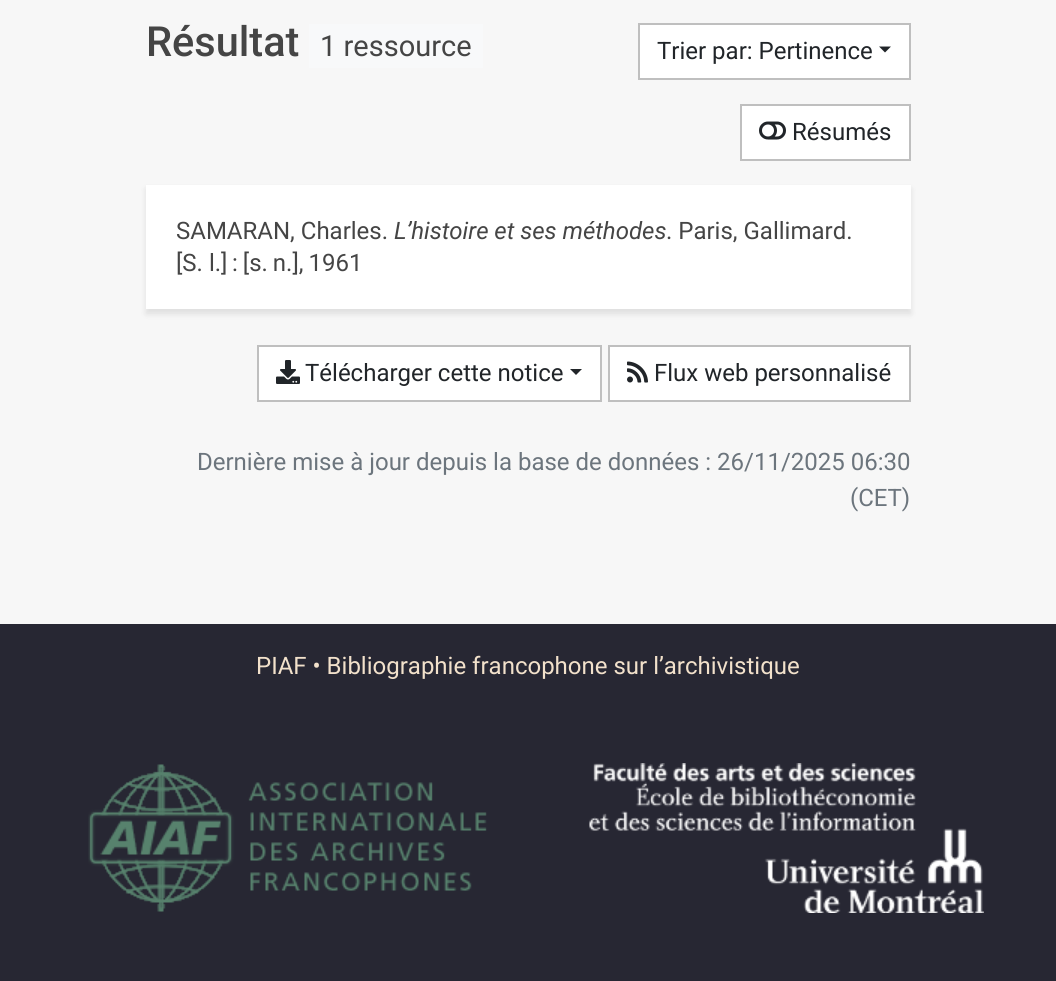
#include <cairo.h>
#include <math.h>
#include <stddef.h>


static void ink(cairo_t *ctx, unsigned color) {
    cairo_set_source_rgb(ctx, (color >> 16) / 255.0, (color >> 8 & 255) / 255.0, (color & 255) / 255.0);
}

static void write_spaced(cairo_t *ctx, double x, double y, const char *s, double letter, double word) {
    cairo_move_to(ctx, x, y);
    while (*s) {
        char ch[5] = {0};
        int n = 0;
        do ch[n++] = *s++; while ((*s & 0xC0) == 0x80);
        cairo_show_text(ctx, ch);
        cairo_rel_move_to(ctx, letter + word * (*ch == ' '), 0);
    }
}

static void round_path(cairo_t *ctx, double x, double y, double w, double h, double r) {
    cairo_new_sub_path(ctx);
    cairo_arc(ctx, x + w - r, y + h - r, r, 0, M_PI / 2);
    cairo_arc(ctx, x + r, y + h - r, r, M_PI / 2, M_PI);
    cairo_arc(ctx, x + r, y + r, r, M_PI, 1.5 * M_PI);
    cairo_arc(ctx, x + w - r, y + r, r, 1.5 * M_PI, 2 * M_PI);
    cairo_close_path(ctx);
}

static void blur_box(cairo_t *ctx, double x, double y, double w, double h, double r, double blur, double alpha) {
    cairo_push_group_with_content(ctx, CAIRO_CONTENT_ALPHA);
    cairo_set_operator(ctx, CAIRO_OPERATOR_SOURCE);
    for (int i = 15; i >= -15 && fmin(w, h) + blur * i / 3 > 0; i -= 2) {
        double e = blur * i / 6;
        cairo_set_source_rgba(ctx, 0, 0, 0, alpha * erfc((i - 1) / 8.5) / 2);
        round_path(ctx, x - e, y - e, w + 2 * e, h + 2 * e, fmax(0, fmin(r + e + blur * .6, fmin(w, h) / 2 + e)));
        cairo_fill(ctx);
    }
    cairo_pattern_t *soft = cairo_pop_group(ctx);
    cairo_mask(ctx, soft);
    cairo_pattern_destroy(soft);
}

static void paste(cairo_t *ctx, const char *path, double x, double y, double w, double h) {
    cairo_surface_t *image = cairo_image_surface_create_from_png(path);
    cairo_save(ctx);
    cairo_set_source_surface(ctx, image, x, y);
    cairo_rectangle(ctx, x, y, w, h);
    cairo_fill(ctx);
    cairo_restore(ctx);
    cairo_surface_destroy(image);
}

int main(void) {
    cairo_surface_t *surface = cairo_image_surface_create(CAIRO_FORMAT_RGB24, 1056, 981);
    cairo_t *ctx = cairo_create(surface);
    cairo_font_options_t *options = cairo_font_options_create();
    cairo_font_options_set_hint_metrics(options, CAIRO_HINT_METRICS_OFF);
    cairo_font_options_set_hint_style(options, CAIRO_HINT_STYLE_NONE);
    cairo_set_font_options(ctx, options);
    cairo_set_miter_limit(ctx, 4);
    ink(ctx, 0xF7F7F7);
    cairo_paint(ctx);
    cairo_select_font_face(ctx, "Roboto Medium", CAIRO_FONT_SLANT_NORMAL, CAIRO_FONT_WEIGHT_NORMAL);
    cairo_set_font_size(ctx, 41.5);
    ink(ctx, 0x454545);
    cairo_move_to(ctx, 146, 56);
    cairo_show_text(ctx, "Résultat");
    ink(ctx, 0xF8F9FA);
    cairo_rectangle(ctx, 309, 24, 174, 44);
    cairo_fill(ctx);
    cairo_select_font_face(ctx, "Roboto", CAIRO_FONT_SLANT_NORMAL, CAIRO_FONT_WEIGHT_NORMAL);
    cairo_set_font_size(ctx, 29);
    ink(ctx, 0x454545);
    cairo_move_to(ctx, 320, 56);
    cairo_show_text(ctx, "1 ressource");
    ink(ctx, 0xFFFFFF);
    cairo_rectangle(ctx, 639, 24, 271, 55);
    cairo_fill_preserve(ctx);
    ink(ctx, 0xBFBFBF);
    cairo_stroke(ctx);
    cairo_set_font_size(ctx, 24);
    ink(ctx, 0x212529);
    cairo_move_to(ctx, 657, 59);
    cairo_show_text(ctx, "Trier par: Pertinence");
    cairo_new_path(ctx);
    cairo_move_to(ctx, 879, 46.5);
    cairo_line_to(ctx, 891, 46.5);
    cairo_line_to(ctx, 885, 52.5);
    cairo_close_path(ctx);
    cairo_fill(ctx);
    ink(ctx, 0xFFFFFF);
    cairo_rectangle(ctx, 741, 105, 169, 55);
    cairo_fill_preserve(ctx);
    ink(ctx, 0xBFBFBF);
    cairo_stroke(ctx);
    paste(ctx, "media/1.png", 759, 121, 27, 19);
    ink(ctx, 0x212529);
    cairo_move_to(ctx, 792, 140);
    cairo_show_text(ctx, "Résumés");
    ink(ctx, 0x000000);
    blur_box(ctx, 146, 189, 765, 125, 0, 3, 0.1);
    ink(ctx, 0xFFFFFF);
    cairo_rectangle(ctx, 146, 185, 765, 124);
    cairo_fill(ctx);
    ink(ctx, 0x454545);
    cairo_move_to(ctx, 176, 239);
    cairo_show_text(ctx, "SAMARAN, Charles.");
    cairo_select_font_face(ctx, "Roboto", CAIRO_FONT_SLANT_ITALIC, CAIRO_FONT_WEIGHT_NORMAL);
    cairo_move_to(ctx, 394, 239);
    cairo_show_text(ctx, "L’histoire et ses méthodes");
    cairo_select_font_face(ctx, "Roboto", CAIRO_FONT_SLANT_NORMAL, CAIRO_FONT_WEIGHT_NORMAL);
    cairo_move_to(ctx, 666, 239);
    cairo_show_text(ctx, ". Paris, Gallimard.");
    cairo_move_to(ctx, 176, 271);
    cairo_show_text(ctx, "[S. l.]");
    write_spaced(ctx, 232, 271, ": [s. n.], 1961", 0, -1);
    ink(ctx, 0xFFFFFF);
    cairo_rectangle(ctx, 258, 346, 343, 55);
    cairo_fill_preserve(ctx);
    ink(ctx, 0xBFBFBF);
    cairo_stroke(ctx);
    paste(ctx, "media/2.png", 276, 360, 24, 24);
    ink(ctx, 0x212529);
    cairo_move_to(ctx, 305, 381);
    cairo_show_text(ctx, "Télécharger cette notice");
    cairo_new_path(ctx);
    cairo_move_to(ctx, 570, 369);
    cairo_line_to(ctx, 582, 369);
    cairo_line_to(ctx, 576, 375);
    cairo_close_path(ctx);
    cairo_fill(ctx);
    ink(ctx, 0xFFFFFF);
    cairo_rectangle(ctx, 609, 346, 301, 55);
    cairo_fill_preserve(ctx);
    ink(ctx, 0xBFBFBF);
    cairo_stroke(ctx);
    paste(ctx, "media/3.png", 627, 361, 21, 22);
    ink(ctx, 0x212529);
    cairo_move_to(ctx, 654, 381);
    cairo_show_text(ctx, "Flux web personnalisé");
    ink(ctx, 0x6C757D);
    cairo_move_to(ctx, 197, 470);
    cairo_show_text(ctx, "Dernière mise à jour depuis la base de données : 26/11/2025 06:30");
    cairo_move_to(ctx, 850, 506);
    cairo_show_text(ctx, "(CET)");
    ink(ctx, 0x272733);
    cairo_rectangle(ctx, 0, 624, 1056, 357);
    cairo_fill(ctx);
    ink(ctx, 0xF2E1CB);
    cairo_move_to(ctx, 256, 674);
    cairo_show_text(ctx, "PIAF • Bibliographie francophone sur l’archivistique");
    paste(ctx, "media/4.png", 88, 764, 399, 148);
    paste(ctx, "media/5.png", 589, 763, 395, 150);
    cairo_surface_write_to_png(surface, "image.png");
    cairo_font_options_destroy(options);
    cairo_destroy(ctx);
    cairo_surface_destroy(surface);
    return 0;
}
